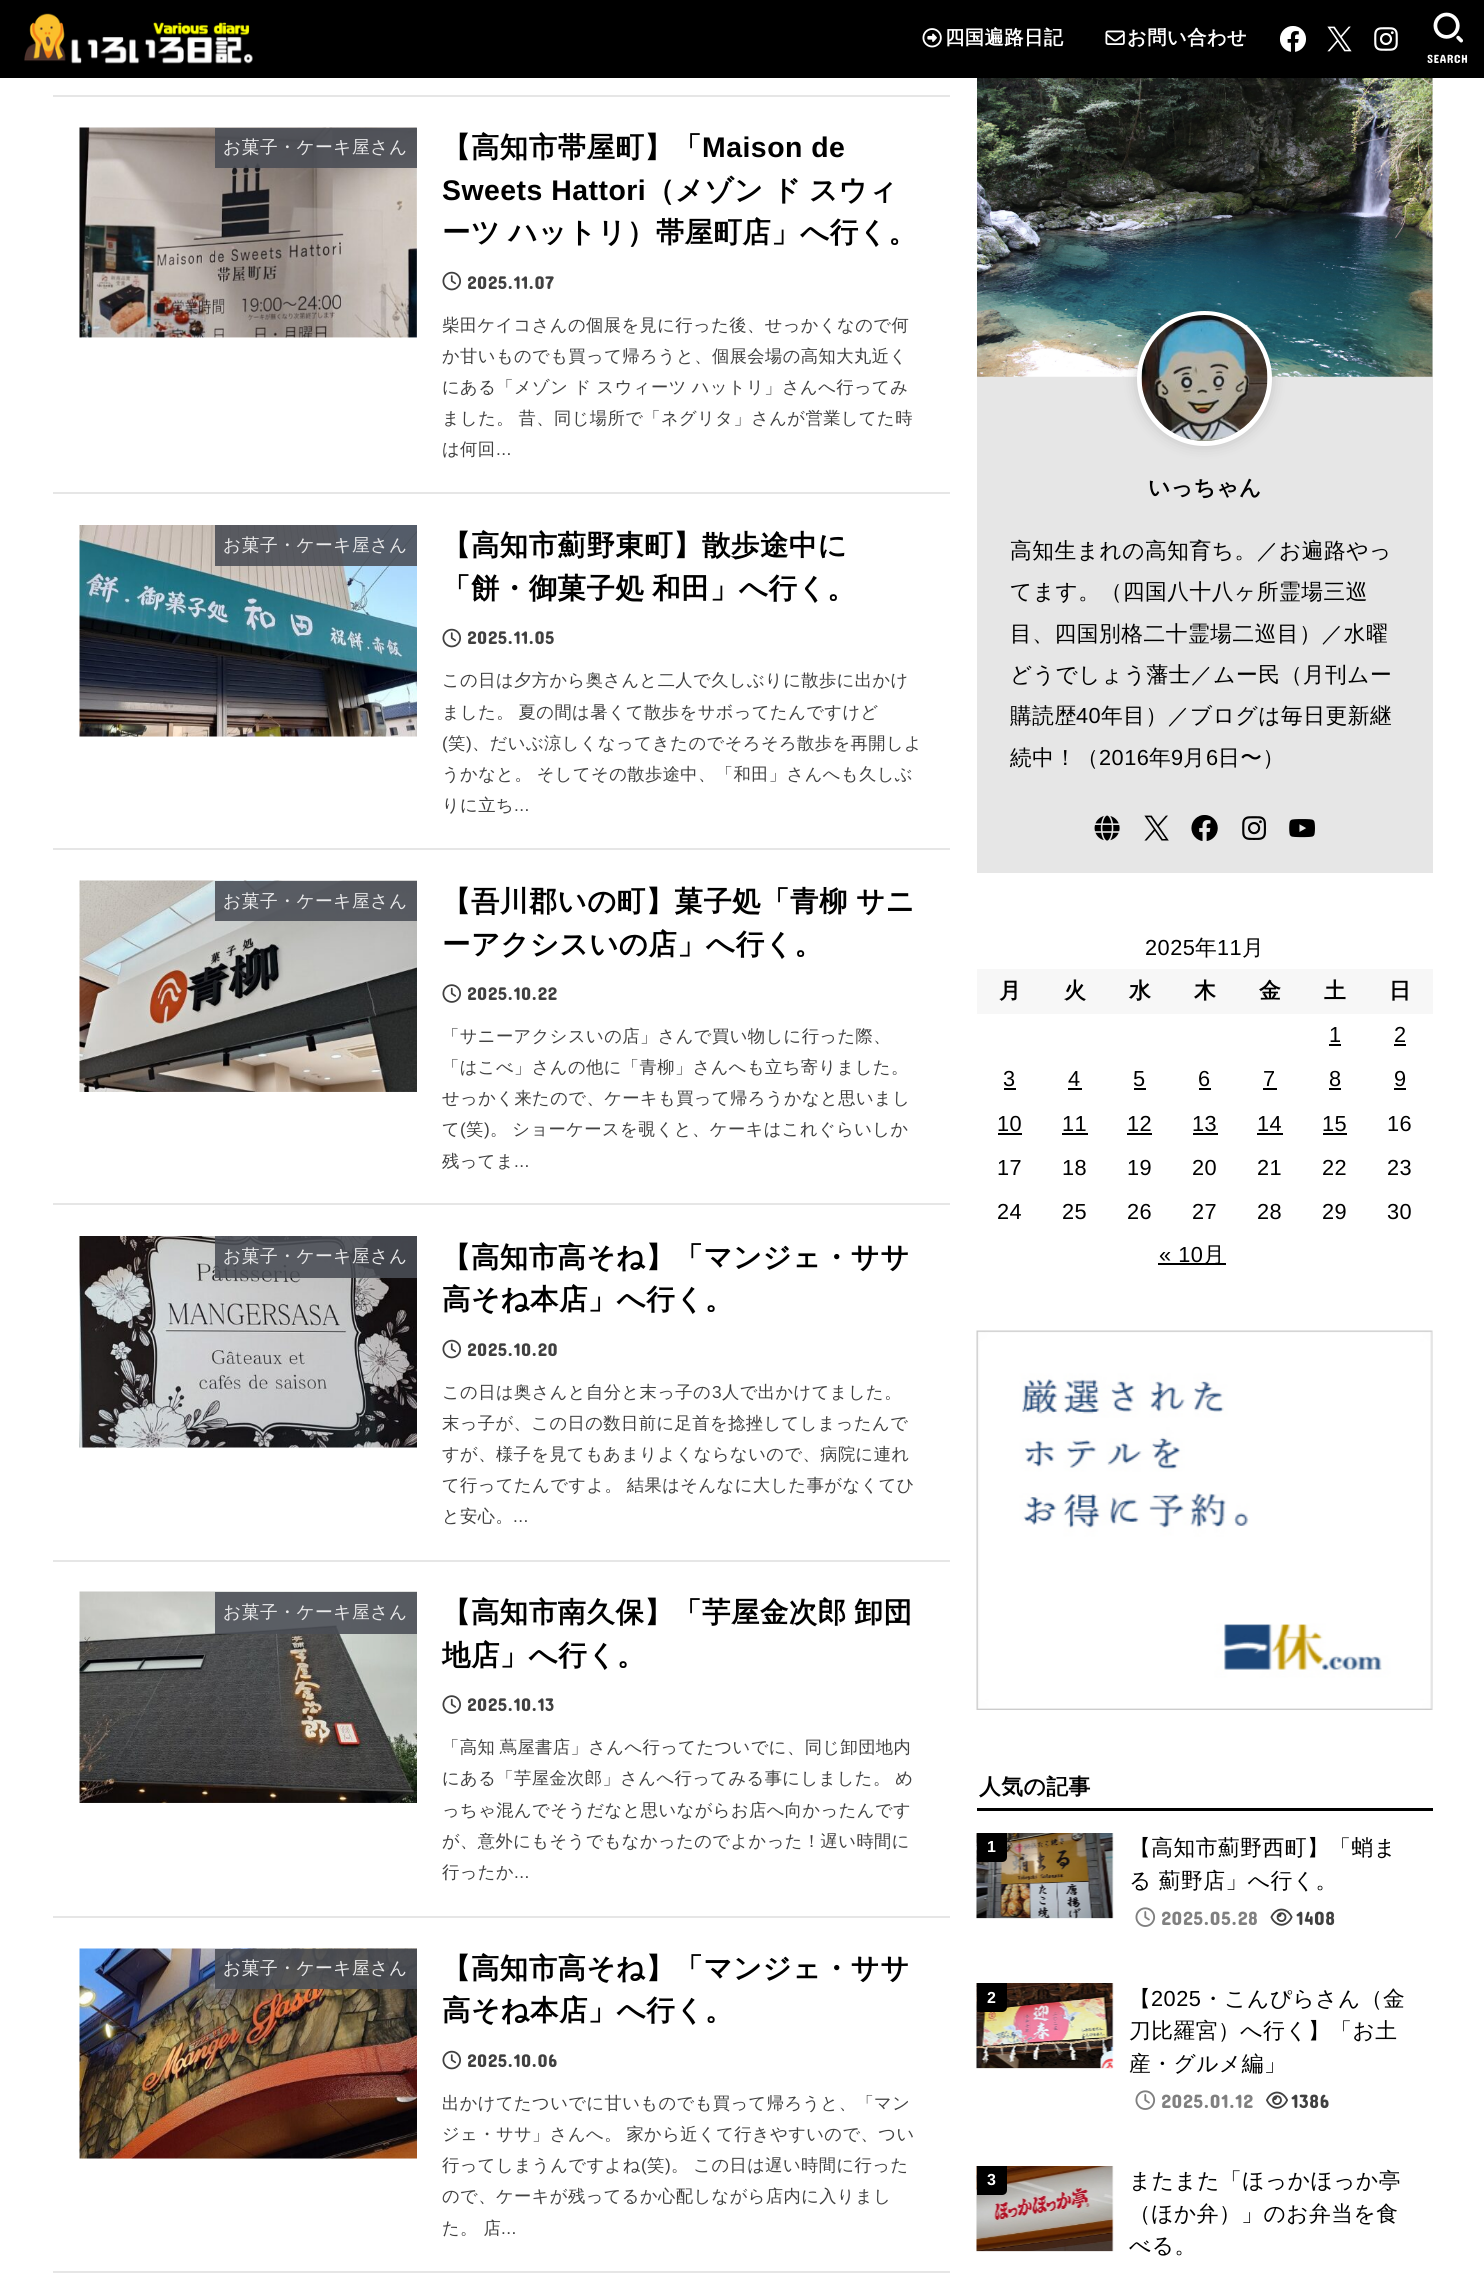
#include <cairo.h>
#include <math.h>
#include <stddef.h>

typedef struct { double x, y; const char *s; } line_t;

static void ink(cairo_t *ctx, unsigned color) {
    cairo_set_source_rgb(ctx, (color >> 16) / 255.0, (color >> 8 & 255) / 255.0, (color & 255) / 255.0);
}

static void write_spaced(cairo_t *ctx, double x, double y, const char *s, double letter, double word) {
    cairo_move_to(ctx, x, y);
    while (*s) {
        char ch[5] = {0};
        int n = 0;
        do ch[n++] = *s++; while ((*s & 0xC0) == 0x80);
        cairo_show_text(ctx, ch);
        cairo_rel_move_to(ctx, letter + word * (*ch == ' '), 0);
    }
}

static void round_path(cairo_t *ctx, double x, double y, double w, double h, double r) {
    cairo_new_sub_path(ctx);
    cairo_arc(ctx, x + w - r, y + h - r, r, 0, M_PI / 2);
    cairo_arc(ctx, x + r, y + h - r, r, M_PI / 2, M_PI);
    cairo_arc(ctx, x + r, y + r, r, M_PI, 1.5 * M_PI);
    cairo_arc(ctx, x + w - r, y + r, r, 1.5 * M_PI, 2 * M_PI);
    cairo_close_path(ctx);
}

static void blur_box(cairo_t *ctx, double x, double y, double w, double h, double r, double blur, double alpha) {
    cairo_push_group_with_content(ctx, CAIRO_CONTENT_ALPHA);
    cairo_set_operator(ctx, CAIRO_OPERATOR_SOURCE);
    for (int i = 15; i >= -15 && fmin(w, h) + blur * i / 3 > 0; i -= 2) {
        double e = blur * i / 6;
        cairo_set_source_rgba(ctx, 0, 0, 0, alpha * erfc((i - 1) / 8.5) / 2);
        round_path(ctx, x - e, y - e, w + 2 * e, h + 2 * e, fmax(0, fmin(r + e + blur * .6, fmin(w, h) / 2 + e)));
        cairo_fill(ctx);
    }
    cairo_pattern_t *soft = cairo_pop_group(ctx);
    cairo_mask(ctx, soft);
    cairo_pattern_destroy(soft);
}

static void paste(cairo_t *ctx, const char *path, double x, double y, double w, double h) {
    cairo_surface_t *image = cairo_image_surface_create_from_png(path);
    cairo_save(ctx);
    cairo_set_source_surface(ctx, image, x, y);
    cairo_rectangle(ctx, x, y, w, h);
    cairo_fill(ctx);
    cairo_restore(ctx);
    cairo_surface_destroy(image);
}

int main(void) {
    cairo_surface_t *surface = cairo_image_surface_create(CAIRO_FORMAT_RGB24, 1484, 2273);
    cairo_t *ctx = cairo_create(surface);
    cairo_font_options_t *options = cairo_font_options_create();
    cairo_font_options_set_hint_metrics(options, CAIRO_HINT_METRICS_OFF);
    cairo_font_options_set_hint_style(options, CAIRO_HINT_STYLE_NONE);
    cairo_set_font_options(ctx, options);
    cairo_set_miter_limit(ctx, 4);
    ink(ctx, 0xFFFFFF);
    cairo_paint(ctx);
    ink(ctx, 0x000000);
    cairo_rectangle(ctx, 0, 0, 1484, 78);
    cairo_fill(ctx);
    paste(ctx, "media/1.png", 24, 13, 229, 51);
    paste(ctx, "media/2.png", 922, 28, 20, 20);
    cairo_select_font_face(ctx, "WenQuanYi Zen Hei", CAIRO_FONT_SLANT_NORMAL, CAIRO_FONT_WEIGHT_BOLD);
    cairo_set_font_size(ctx, 19.25);
    ink(ctx, 0xFFFFFF);
    write_spaced(ctx, 945, 44, "四国遍路日記", 0.5, 0);
    paste(ctx, "media/3.png", 1105, 30, 20, 15);
    write_spaced(ctx, 1127, 44, "お問い合わせ", 0.5, 0);
    paste(ctx, "media/4.png", 1280, 26, 26, 26);
    paste(ctx, "media/5.png", 1327, 26, 25, 26);
    paste(ctx, "media/6.png", 1374, 27, 24, 24);
    paste(ctx, "media/7.png", 1433, 12, 30, 31);
    cairo_select_font_face(ctx, "Concert One", CAIRO_FONT_SLANT_NORMAL, CAIRO_FONT_WEIGHT_NORMAL);
    cairo_set_font_size(ctx, 12);
    write_spaced(ctx, 1427, 63, "SEARCH", 0.5, 0);
    ink(ctx, 0xE6E6E6);
    cairo_rectangle(ctx, 53, 95, 897, 2);
    cairo_fill(ctx);
    cairo_rectangle(ctx, 53, 492, 897, 2);
    cairo_fill(ctx);
    paste(ctx, "media/8.png", 79, 127, 338, 211);
    cairo_set_source_rgba(ctx, 0.29, 0.302, 0.337, 0.88);
    cairo_rectangle(ctx, 215, 128, 202, 40);
    cairo_fill(ctx);
    cairo_select_font_face(ctx, "WenQuanYi Zen Hei Medium", CAIRO_FONT_SLANT_NORMAL, CAIRO_FONT_WEIGHT_NORMAL);
    cairo_set_font_size(ctx, 17.75);
    ink(ctx, 0xEAEAEB);
    write_spaced(ctx, 223, 153, "お菓子・ケーキ屋さん", 0.5, 0);
    cairo_select_font_face(ctx, "WenQuanYi Zen Hei", CAIRO_FONT_SLANT_NORMAL, CAIRO_FONT_WEIGHT_BOLD);
    cairo_set_font_size(ctx, 28.4);
    ink(ctx, 0x000000);
    write_spaced(ctx, 442, 157, "【高知市帯屋町】「", 0.5, 0);
    cairo_select_font_face(ctx, "Liberation Sans", CAIRO_FONT_SLANT_NORMAL, CAIRO_FONT_WEIGHT_BOLD);
    write_spaced(ctx, 702, 157, "Maison de", 0.5, 0);
    write_spaced(ctx, 442, 200, "Sweets Hattori", 0.5, 0);
    cairo_select_font_face(ctx, "WenQuanYi Zen Hei", CAIRO_FONT_SLANT_NORMAL, CAIRO_FONT_WEIGHT_BOLD);
    {
        static const line_t items[] = {
            {646, 200, "（メゾン"},
            {772, 200, "ド"},
            {809, 200, "スウィ"},
        };
        for (size_t i = 0; i < sizeof items / sizeof *items; i++) {
            write_spaced(ctx, items[i].x, items[i].y, items[i].s, 0.5, 0);
        }
    }
    write_spaced(ctx, 442, 242, "ーツ ハットリ）帯屋町店」へ行く。", 0.5, -1);
    paste(ctx, "media/9.png", 442, 271, 19, 20);
    cairo_select_font_face(ctx, "Concert One", CAIRO_FONT_SLANT_NORMAL, CAIRO_FONT_WEIGHT_NORMAL);
    cairo_set_font_size(ctx, 18.5);
    ink(ctx, 0x404040);
    write_spaced(ctx, 467, 289, "2025.11.07", 0.5, 0);
    cairo_select_font_face(ctx, "WenQuanYi Zen Hei Medium", CAIRO_FONT_SLANT_NORMAL, CAIRO_FONT_WEIGHT_NORMAL);
    cairo_set_font_size(ctx, 17.3);
    write_spaced(ctx, 442, 331, "柴田ケイコさんの個展を見に行った後、せっかくなので何", 0.4, 0);
    write_spaced(ctx, 442, 362, "か甘いものでも買って帰ろうと、個展会場の高知大丸近く", 0.4, 0);
    write_spaced(ctx, 442, 393, "にある「メゾン ド スウィーツ ハットリ」さんへ行ってみ", 0.4, -0.5);
    write_spaced(ctx, 442, 424, "ました。 昔、同じ場所で「ネグリタ」さんが営業してた時", 0.4, -1);
    write_spaced(ctx, 442, 455, "は何回", 0.4, 0);
    cairo_select_font_face(ctx, "Liberation Sans", CAIRO_FONT_SLANT_NORMAL, CAIRO_FONT_WEIGHT_NORMAL);
    write_spaced(ctx, 496, 455, "...", 0.4, 0);
    ink(ctx, 0xE6E6E6);
    cairo_rectangle(ctx, 53, 848, 897, 2);
    cairo_fill(ctx);
    paste(ctx, "media/10.png", 79, 525, 338, 212);
    cairo_set_source_rgba(ctx, 0.29, 0.302, 0.337, 0.88);
    cairo_rectangle(ctx, 215, 525, 202, 41);
    cairo_fill(ctx);
    cairo_select_font_face(ctx, "WenQuanYi Zen Hei Medium", CAIRO_FONT_SLANT_NORMAL, CAIRO_FONT_WEIGHT_NORMAL);
    cairo_set_font_size(ctx, 17.75);
    ink(ctx, 0xEAEAEB);
    write_spaced(ctx, 223, 551, "お菓子・ケーキ屋さん", 0.5, 0);
    cairo_select_font_face(ctx, "WenQuanYi Zen Hei", CAIRO_FONT_SLANT_NORMAL, CAIRO_FONT_WEIGHT_BOLD);
    cairo_set_font_size(ctx, 28.4);
    ink(ctx, 0x000000);
    write_spaced(ctx, 442, 555, "【高知市薊野東町】散歩途中に", 0.5, 0);
    write_spaced(ctx, 442, 598, "「餅・御菓子処 和田」へ行く。", 0.5, -1);
    paste(ctx, "media/9.png", 442, 628, 19, 20);
    cairo_select_font_face(ctx, "Concert One", CAIRO_FONT_SLANT_NORMAL, CAIRO_FONT_WEIGHT_NORMAL);
    cairo_set_font_size(ctx, 18.5);
    ink(ctx, 0x404040);
    write_spaced(ctx, 467, 644, "2025.11.05", 0.5, 0);
    cairo_select_font_face(ctx, "WenQuanYi Zen Hei Medium", CAIRO_FONT_SLANT_NORMAL, CAIRO_FONT_WEIGHT_NORMAL);
    cairo_set_font_size(ctx, 17.3);
    write_spaced(ctx, 442, 686, "この日は夕方から奥さんと二人で久しぶりに散歩に出かけ", 0.4, 0);
    write_spaced(ctx, 442, 718, "ました。 夏の間は暑くて散歩をサボってたんですけど", 0.4, -1);
    cairo_select_font_face(ctx, "Liberation Sans", CAIRO_FONT_SLANT_NORMAL, CAIRO_FONT_WEIGHT_NORMAL);
    write_spaced(ctx, 442, 749, "(", 0.4, 0);
    cairo_select_font_face(ctx, "WenQuanYi Zen Hei Medium", CAIRO_FONT_SLANT_NORMAL, CAIRO_FONT_WEIGHT_NORMAL);
    write_spaced(ctx, 448, 749, "笑", 0.4, 0);
    cairo_select_font_face(ctx, "Liberation Sans", CAIRO_FONT_SLANT_NORMAL, CAIRO_FONT_WEIGHT_NORMAL);
    write_spaced(ctx, 466, 749, ")", 0.4, 0);
    cairo_select_font_face(ctx, "WenQuanYi Zen Hei Medium", CAIRO_FONT_SLANT_NORMAL, CAIRO_FONT_WEIGHT_NORMAL);
    write_spaced(ctx, 472, 749, "、だいぶ涼しくなってきたのでそろそろ散歩を再開しよ", 0.4, 0);
    write_spaced(ctx, 442, 780, "うかなと。 そしてその散歩途中、「和田」さんへも久しぶ", 0.4, -1);
    write_spaced(ctx, 442, 811, "りに立ち", 0.4, 0);
    cairo_select_font_face(ctx, "Liberation Sans", CAIRO_FONT_SLANT_NORMAL, CAIRO_FONT_WEIGHT_NORMAL);
    write_spaced(ctx, 514, 811, "...", 0.4, 0);
    ink(ctx, 0xE6E6E6);
    cairo_rectangle(ctx, 53, 1203, 897, 2);
    cairo_fill(ctx);
    paste(ctx, "media/11.png", 79, 880, 338, 212);
    cairo_set_source_rgba(ctx, 0.29, 0.302, 0.337, 0.88);
    cairo_rectangle(ctx, 215, 881, 202, 40);
    cairo_fill(ctx);
    cairo_select_font_face(ctx, "WenQuanYi Zen Hei Medium", CAIRO_FONT_SLANT_NORMAL, CAIRO_FONT_WEIGHT_NORMAL);
    cairo_set_font_size(ctx, 17.75);
    ink(ctx, 0xEAEAEB);
    write_spaced(ctx, 223, 907, "お菓子・ケーキ屋さん", 0.5, 0);
    cairo_select_font_face(ctx, "WenQuanYi Zen Hei", CAIRO_FONT_SLANT_NORMAL, CAIRO_FONT_WEIGHT_BOLD);
    cairo_set_font_size(ctx, 28.4);
    ink(ctx, 0x000000);
    write_spaced(ctx, 442, 911, "【吾川郡いの町】菓子処「青柳 サニ", 0.5, -1);
    write_spaced(ctx, 442, 954, "ーアクシスいの店」へ行く。", 0.5, 0);
    paste(ctx, "media/12.png", 442, 984, 19, 19);
    cairo_select_font_face(ctx, "Concert One", CAIRO_FONT_SLANT_NORMAL, CAIRO_FONT_WEIGHT_NORMAL);
    cairo_set_font_size(ctx, 18.5);
    ink(ctx, 0x404040);
    write_spaced(ctx, 467, 1000, "2025.10.22", 0.5, 0);
    cairo_select_font_face(ctx, "WenQuanYi Zen Hei Medium", CAIRO_FONT_SLANT_NORMAL, CAIRO_FONT_WEIGHT_NORMAL);
    cairo_set_font_size(ctx, 17.3);
    {
        static const line_t items[] = {
            {442, 1042, "「サニーアクシスいの店」さんで買い物しに行った際、"},
            {442, 1073, "「はこべ」さんの他に「青柳」さんへも立ち寄りました。"},
            {442, 1104, "せっかく来たので、ケーキも買って帰ろうかなと思いまし"},
            {442, 1135, "て"},
        };
        for (size_t i = 0; i < sizeof items / sizeof *items; i++) {
            write_spaced(ctx, items[i].x, items[i].y, items[i].s, 0.4, 0);
        }
    }
    cairo_select_font_face(ctx, "Liberation Sans", CAIRO_FONT_SLANT_NORMAL, CAIRO_FONT_WEIGHT_NORMAL);
    write_spaced(ctx, 460, 1135, "(", 0.4, 0);
    cairo_select_font_face(ctx, "WenQuanYi Zen Hei Medium", CAIRO_FONT_SLANT_NORMAL, CAIRO_FONT_WEIGHT_NORMAL);
    write_spaced(ctx, 466, 1135, "笑", 0.4, 0);
    cairo_select_font_face(ctx, "Liberation Sans", CAIRO_FONT_SLANT_NORMAL, CAIRO_FONT_WEIGHT_NORMAL);
    write_spaced(ctx, 484, 1135, ")", 0.4, 0);
    cairo_select_font_face(ctx, "WenQuanYi Zen Hei Medium", CAIRO_FONT_SLANT_NORMAL, CAIRO_FONT_WEIGHT_NORMAL);
    write_spaced(ctx, 490, 1135, "。 ショーケースを覗くと、ケーキはこれぐらいしか", 0.4, -1);
    write_spaced(ctx, 442, 1167, "残ってま", 0.4, 0);
    cairo_select_font_face(ctx, "Liberation Sans", CAIRO_FONT_SLANT_NORMAL, CAIRO_FONT_WEIGHT_NORMAL);
    write_spaced(ctx, 514, 1167, "...", 0.4, 0);
    ink(ctx, 0xE6E6E6);
    cairo_rectangle(ctx, 53, 1560, 897, 2);
    cairo_fill(ctx);
    paste(ctx, "media/13.png", 79, 1236, 338, 212);
    cairo_set_source_rgba(ctx, 0.29, 0.302, 0.337, 0.88);
    cairo_rectangle(ctx, 215, 1236, 202, 42);
    cairo_fill(ctx);
    cairo_select_font_face(ctx, "WenQuanYi Zen Hei Medium", CAIRO_FONT_SLANT_NORMAL, CAIRO_FONT_WEIGHT_NORMAL);
    cairo_set_font_size(ctx, 17.75);
    ink(ctx, 0xEAEAEB);
    write_spaced(ctx, 223, 1262, "お菓子・ケーキ屋さん", 0.5, 0);
    cairo_select_font_face(ctx, "WenQuanYi Zen Hei", CAIRO_FONT_SLANT_NORMAL, CAIRO_FONT_WEIGHT_BOLD);
    cairo_set_font_size(ctx, 28.4);
    ink(ctx, 0x000000);
    write_spaced(ctx, 442, 1267, "【高知市高そね】「マンジェ・ササ", 0.5, 0);
    write_spaced(ctx, 442, 1309, "高そね本店」へ行く。", 0.5, 0);
    paste(ctx, "media/9.png", 442, 1339, 19, 20);
    cairo_select_font_face(ctx, "Concert One", CAIRO_FONT_SLANT_NORMAL, CAIRO_FONT_WEIGHT_NORMAL);
    cairo_set_font_size(ctx, 18.5);
    ink(ctx, 0x404040);
    write_spaced(ctx, 467, 1356, "2025.10.20", 0.5, 0);
    cairo_select_font_face(ctx, "WenQuanYi Zen Hei Medium", CAIRO_FONT_SLANT_NORMAL, CAIRO_FONT_WEIGHT_NORMAL);
    cairo_set_font_size(ctx, 17.3);
    write_spaced(ctx, 442, 1398, "この日は奥さんと自分と末っ子の", 0.4, 0);
    cairo_select_font_face(ctx, "Liberation Sans", CAIRO_FONT_SLANT_NORMAL, CAIRO_FONT_WEIGHT_NORMAL);
    write_spaced(ctx, 712, 1398, "3", 0.4, 0);
    cairo_select_font_face(ctx, "WenQuanYi Zen Hei Medium", CAIRO_FONT_SLANT_NORMAL, CAIRO_FONT_WEIGHT_NORMAL);
    {
        static const line_t items[] = {
            {722, 1398, "人で出かけてました。"},
            {442, 1429, "末っ子が、この日の数日前に足首を捻挫してしまったんで"},
            {442, 1460, "すが、様子を見てもあまりよくならないので、病院に連れ"},
        };
        for (size_t i = 0; i < sizeof items / sizeof *items; i++) {
            write_spaced(ctx, items[i].x, items[i].y, items[i].s, 0.4, 0);
        }
    }
    write_spaced(ctx, 442, 1491, "て行ってたんですよ。 結果はそんなに大した事がなくてひ", 0.4, -1);
    write_spaced(ctx, 442, 1522, "と安心。", 0.4, 0);
    cairo_select_font_face(ctx, "Liberation Sans", CAIRO_FONT_SLANT_NORMAL, CAIRO_FONT_WEIGHT_NORMAL);
    write_spaced(ctx, 513, 1522, "...", 0.4, 0);
    ink(ctx, 0xE6E6E6);
    cairo_rectangle(ctx, 53, 1916, 897, 2);
    cairo_fill(ctx);
    paste(ctx, "media/14.png", 79, 1591, 338, 212);
    cairo_set_source_rgba(ctx, 0.29, 0.302, 0.337, 0.88);
    cairo_rectangle(ctx, 215, 1592, 202, 42);
    cairo_fill(ctx);
    cairo_select_font_face(ctx, "WenQuanYi Zen Hei Medium", CAIRO_FONT_SLANT_NORMAL, CAIRO_FONT_WEIGHT_NORMAL);
    cairo_set_font_size(ctx, 17.75);
    ink(ctx, 0xEAEAEB);
    write_spaced(ctx, 223, 1618, "お菓子・ケーキ屋さん", 0.5, 0);
    cairo_select_font_face(ctx, "WenQuanYi Zen Hei", CAIRO_FONT_SLANT_NORMAL, CAIRO_FONT_WEIGHT_BOLD);
    cairo_set_font_size(ctx, 28.4);
    ink(ctx, 0x000000);
    write_spaced(ctx, 442, 1622, "【高知市南久保】「芋屋金次郎 卸団", 0.5, -1);
    write_spaced(ctx, 442, 1665, "地店」へ行く。", 0.5, 0);
    paste(ctx, "media/12.png", 442, 1695, 19, 19);
    cairo_select_font_face(ctx, "Concert One", CAIRO_FONT_SLANT_NORMAL, CAIRO_FONT_WEIGHT_NORMAL);
    cairo_set_font_size(ctx, 18.5);
    ink(ctx, 0x404040);
    write_spaced(ctx, 467, 1711, "2025.10.13", 0.5, 0);
    cairo_select_font_face(ctx, "WenQuanYi Zen Hei Medium", CAIRO_FONT_SLANT_NORMAL, CAIRO_FONT_WEIGHT_NORMAL);
    cairo_set_font_size(ctx, 17.3);
    write_spaced(ctx, 442, 1753, "「高知 蔦屋書店」さんへ行ってたついでに、同じ卸団地内", 0.4, -1);
    write_spaced(ctx, 442, 1784, "にある「芋屋金次郎」さんへ行ってみる事にしました。 め", 0.4, -1);
    {
        static const line_t items[] = {
            {442, 1816, "っちゃ混んでそうだなと思いながらお店へ向かったんです"},
            {442, 1847, "が、意外にもそうでもなかったのでよかった！遅い時間に"},
            {442, 1878, "行ったか"},
        };
        for (size_t i = 0; i < sizeof items / sizeof *items; i++) {
            write_spaced(ctx, items[i].x, items[i].y, items[i].s, 0.4, 0);
        }
    }
    cairo_select_font_face(ctx, "Liberation Sans", CAIRO_FONT_SLANT_NORMAL, CAIRO_FONT_WEIGHT_NORMAL);
    write_spaced(ctx, 514, 1878, "...", 0.4, 0);
    ink(ctx, 0xE6E6E6);
    cairo_rectangle(ctx, 53, 2271, 897, 2);
    cairo_fill(ctx);
    paste(ctx, "media/15.png", 79, 1948, 338, 211);
    cairo_set_source_rgba(ctx, 0.29, 0.302, 0.337, 0.88);
    cairo_rectangle(ctx, 215, 1949, 202, 40);
    cairo_fill(ctx);
    cairo_select_font_face(ctx, "WenQuanYi Zen Hei Medium", CAIRO_FONT_SLANT_NORMAL, CAIRO_FONT_WEIGHT_NORMAL);
    cairo_set_font_size(ctx, 17.75);
    ink(ctx, 0xEAEAEB);
    write_spaced(ctx, 223, 1974, "お菓子・ケーキ屋さん", 0.5, 0);
    cairo_select_font_face(ctx, "WenQuanYi Zen Hei", CAIRO_FONT_SLANT_NORMAL, CAIRO_FONT_WEIGHT_BOLD);
    cairo_set_font_size(ctx, 28.4);
    ink(ctx, 0x000000);
    write_spaced(ctx, 442, 1978, "【高知市高そね】「マンジェ・ササ", 0.5, 0);
    write_spaced(ctx, 442, 2020, "高そね本店」へ行く。", 0.5, 0);
    paste(ctx, "media/9.png", 442, 2050, 19, 20);
    cairo_select_font_face(ctx, "Concert One", CAIRO_FONT_SLANT_NORMAL, CAIRO_FONT_WEIGHT_NORMAL);
    cairo_set_font_size(ctx, 18.5);
    ink(ctx, 0x404040);
    write_spaced(ctx, 467, 2067, "2025.10.06", 0.5, 0);
    cairo_select_font_face(ctx, "WenQuanYi Zen Hei Medium", CAIRO_FONT_SLANT_NORMAL, CAIRO_FONT_WEIGHT_NORMAL);
    cairo_set_font_size(ctx, 17.3);
    write_spaced(ctx, 442, 2109, "出かけてたついでに甘いものでも買って帰ろうと、「マン", 0.4, 0);
    write_spaced(ctx, 442, 2140, "ジェ・ササ」さんへ。 家から近くて行きやすいので、つい", 0.4, -1);
    write_spaced(ctx, 442, 2171, "行ってしまうんですよね", 0.4, 0);
    cairo_select_font_face(ctx, "Liberation Sans", CAIRO_FONT_SLANT_NORMAL, CAIRO_FONT_WEIGHT_NORMAL);
    write_spaced(ctx, 641, 2171, "(", 0.4, 0);
    cairo_select_font_face(ctx, "WenQuanYi Zen Hei Medium", CAIRO_FONT_SLANT_NORMAL, CAIRO_FONT_WEIGHT_NORMAL);
    write_spaced(ctx, 647, 2171, "笑", 0.4, 0);
    cairo_select_font_face(ctx, "Liberation Sans", CAIRO_FONT_SLANT_NORMAL, CAIRO_FONT_WEIGHT_NORMAL);
    write_spaced(ctx, 665, 2171, ")", 0.4, 0);
    cairo_select_font_face(ctx, "WenQuanYi Zen Hei Medium", CAIRO_FONT_SLANT_NORMAL, CAIRO_FONT_WEIGHT_NORMAL);
    write_spaced(ctx, 671, 2171, "。 この日は遅い時間に行った", 0.4, -1);
    write_spaced(ctx, 442, 2202, "ので、ケーキが残ってるか心配しながら店内に入りまし", 0.4, 0);
    write_spaced(ctx, 442, 2234, "た。 店", 0.4, 0);
    cairo_select_font_face(ctx, "Liberation Sans", CAIRO_FONT_SLANT_NORMAL, CAIRO_FONT_WEIGHT_NORMAL);
    write_spaced(ctx, 501, 2234, "...", 0.4, 0);
    ink(ctx, 0xE6E6E6);
    cairo_rectangle(ctx, 977, 78, 456, 795);
    cairo_fill(ctx);
    paste(ctx, "media/16.png", 977, 78, 456, 299);
    ink(ctx, 0x000000);
    blur_box(ctx, 1137, 311, 135, 135, 67.5, 7.5, 0.15);
    cairo_arc(ctx, 1204.5, 378.5, 65, 0, 2 * M_PI);
    ink(ctx, 0xFFFFFF);
    cairo_set_line_width(ctx, 5);
    cairo_stroke(ctx);
    paste(ctx, "media/17.png", 1141, 315, 127, 126);
    cairo_select_font_face(ctx, "WenQuanYi Zen Hei", CAIRO_FONT_SLANT_NORMAL, CAIRO_FONT_WEIGHT_BOLD);
    cairo_set_font_size(ctx, 21.75);
    ink(ctx, 0x000000);
    write_spaced(ctx, 1148, 495, "いっちゃん", 0.5, 0);
    cairo_select_font_face(ctx, "WenQuanYi Zen Hei Medium", CAIRO_FONT_SLANT_NORMAL, CAIRO_FONT_WEIGHT_NORMAL);
    {
        static const line_t items[] = {
            {1010, 558, "高知生まれの高知育ち。／お遍路やっ"},
            {1010, 599, "てます。（四国八十八ヶ所霊場三巡"},
            {1010, 641, "目、四国別格二十霊場二巡目）／水曜"},
            {1010, 682, "どうでしょう藩士／ムー民（月刊ムー"},
            {1010, 723, "購読歴"},
        };
        for (size_t i = 0; i < sizeof items / sizeof *items; i++) {
            write_spaced(ctx, items[i].x, items[i].y, items[i].s, 0.5, 0);
        }
    }
    cairo_select_font_face(ctx, "Liberation Sans", CAIRO_FONT_SLANT_NORMAL, CAIRO_FONT_WEIGHT_NORMAL);
    write_spaced(ctx, 1076, 723, "40", 0.5, 0);
    cairo_select_font_face(ctx, "WenQuanYi Zen Hei Medium", CAIRO_FONT_SLANT_NORMAL, CAIRO_FONT_WEIGHT_NORMAL);
    write_spaced(ctx, 1101, 723, "年目）／ブログは毎日更新継", 0.5, 0);
    write_spaced(ctx, 1010, 765, "続中！（", 0.5, 0);
    cairo_select_font_face(ctx, "Liberation Sans", CAIRO_FONT_SLANT_NORMAL, CAIRO_FONT_WEIGHT_NORMAL);
    write_spaced(ctx, 1099, 765, "2016", 0.5, 0);
    cairo_select_font_face(ctx, "WenQuanYi Zen Hei Medium", CAIRO_FONT_SLANT_NORMAL, CAIRO_FONT_WEIGHT_NORMAL);
    write_spaced(ctx, 1149, 765, "年", 0.5, 0);
    cairo_select_font_face(ctx, "Liberation Sans", CAIRO_FONT_SLANT_NORMAL, CAIRO_FONT_WEIGHT_NORMAL);
    write_spaced(ctx, 1171, 765, "9", 0.5, 0);
    cairo_select_font_face(ctx, "WenQuanYi Zen Hei Medium", CAIRO_FONT_SLANT_NORMAL, CAIRO_FONT_WEIGHT_NORMAL);
    write_spaced(ctx, 1183, 765, "月", 0.5, 0);
    cairo_select_font_face(ctx, "Liberation Sans", CAIRO_FONT_SLANT_NORMAL, CAIRO_FONT_WEIGHT_NORMAL);
    write_spaced(ctx, 1206, 765, "6", 0.5, 0);
    cairo_select_font_face(ctx, "WenQuanYi Zen Hei Medium", CAIRO_FONT_SLANT_NORMAL, CAIRO_FONT_WEIGHT_NORMAL);
    write_spaced(ctx, 1218, 765, "日〜）", 0.5, 0);
    paste(ctx, "media/18.png", 1094, 815, 26, 26);
    paste(ctx, "media/19.png", 1144, 815, 25, 26);
    paste(ctx, "media/20.png", 1191, 815, 27, 26);
    paste(ctx, "media/21.png", 1242, 816, 24, 24);
    paste(ctx, "media/22.png", 1289, 819, 26, 19);
    cairo_select_font_face(ctx, "Liberation Sans", CAIRO_FONT_SLANT_NORMAL, CAIRO_FONT_WEIGHT_NORMAL);
    write_spaced(ctx, 1145, 955, "2025", 0.5, 0);
    cairo_select_font_face(ctx, "WenQuanYi Zen Hei Medium", CAIRO_FONT_SLANT_NORMAL, CAIRO_FONT_WEIGHT_NORMAL);
    write_spaced(ctx, 1195, 955, "年", 0.5, 0);
    cairo_select_font_face(ctx, "Liberation Sans", CAIRO_FONT_SLANT_NORMAL, CAIRO_FONT_WEIGHT_NORMAL);
    write_spaced(ctx, 1217, 955, "11", 0.5, 0);
    cairo_select_font_face(ctx, "WenQuanYi Zen Hei Medium", CAIRO_FONT_SLANT_NORMAL, CAIRO_FONT_WEIGHT_NORMAL);
    write_spaced(ctx, 1242, 955, "月", 0.5, 0);
    ink(ctx, 0xF7F7F7);
    cairo_rectangle(ctx, 977, 969, 456, 45);
    cairo_fill(ctx);
    cairo_select_font_face(ctx, "WenQuanYi Zen Hei", CAIRO_FONT_SLANT_NORMAL, CAIRO_FONT_WEIGHT_BOLD);
    ink(ctx, 0x000000);
    {
        static const line_t items[] = {
            {999, 998, "月"},
            {1064, 998, "火"},
            {1129, 998, "水"},
            {1194, 998, "木"},
            {1259, 998, "金"},
            {1324, 998, "土"},
            {1389, 998, "日"},
        };
        for (size_t i = 0; i < sizeof items / sizeof *items; i++) {
            write_spaced(ctx, items[i].x, items[i].y, items[i].s, 0.5, 0);
        }
    }
    cairo_select_font_face(ctx, "Liberation Sans", CAIRO_FONT_SLANT_NORMAL, CAIRO_FONT_WEIGHT_NORMAL);
    write_spaced(ctx, 1329, 1042, "1", 0.5, 0);
    cairo_rectangle(ctx, 1329, 1044, 12, 2);
    cairo_fill(ctx);
    write_spaced(ctx, 1394, 1042, "2", 0.5, 0);
    cairo_rectangle(ctx, 1394, 1044, 12, 2);
    cairo_fill(ctx);
    write_spaced(ctx, 1003, 1086, "3", 0.5, 0);
    cairo_rectangle(ctx, 1004, 1088, 12, 2);
    cairo_fill(ctx);
    write_spaced(ctx, 1068, 1086, "4", 0.5, 0);
    cairo_rectangle(ctx, 1068, 1088, 14, 2);
    cairo_fill(ctx);
    write_spaced(ctx, 1133, 1086, "5", 0.5, 0);
    cairo_rectangle(ctx, 1134, 1088, 12, 2);
    cairo_fill(ctx);
    write_spaced(ctx, 1198, 1086, "6", 0.5, 0);
    cairo_rectangle(ctx, 1199, 1088, 12, 2);
    cairo_fill(ctx);
    write_spaced(ctx, 1263, 1086, "7", 0.5, 0);
    cairo_rectangle(ctx, 1263, 1088, 14, 2);
    cairo_fill(ctx);
    write_spaced(ctx, 1329, 1086, "8", 0.5, 0);
    cairo_rectangle(ctx, 1329, 1088, 12, 2);
    cairo_fill(ctx);
    write_spaced(ctx, 1394, 1086, "9", 0.5, 0);
    cairo_rectangle(ctx, 1394, 1088, 12, 2);
    cairo_fill(ctx);
    write_spaced(ctx, 997, 1131, "10", 0.5, 0);
    cairo_rectangle(ctx, 998, 1133, 24, 2);
    cairo_fill(ctx);
    write_spaced(ctx, 1062, 1131, "11", 0.5, 0);
    cairo_rectangle(ctx, 1062, 1133, 26, 2);
    cairo_fill(ctx);
    write_spaced(ctx, 1127, 1131, "12", 0.5, 0);
    cairo_rectangle(ctx, 1127, 1133, 25, 2);
    cairo_fill(ctx);
    write_spaced(ctx, 1192, 1131, "13", 0.5, 0);
    cairo_rectangle(ctx, 1193, 1133, 25, 2);
    cairo_fill(ctx);
    write_spaced(ctx, 1257, 1131, "14", 0.5, 0);
    cairo_rectangle(ctx, 1257, 1133, 26, 2);
    cairo_fill(ctx);
    write_spaced(ctx, 1322, 1131, "15", 0.5, 0);
    cairo_rectangle(ctx, 1323, 1133, 24, 2);
    cairo_fill(ctx);
    {
        static const line_t items[] = {
            {1387, 1131, "16"},
            {997, 1175, "17"},
            {1062, 1175, "18"},
            {1127, 1175, "19"},
            {1192, 1175, "20"},
            {1257, 1175, "21"},
            {1322, 1175, "22"},
            {1387, 1175, "23"},
            {997, 1219, "24"},
            {1062, 1219, "25"},
            {1127, 1219, "26"},
            {1192, 1219, "27"},
            {1257, 1219, "28"},
            {1322, 1219, "29"},
            {1387, 1219, "30"},
            {1159, 1262, "« 10"},
        };
        for (size_t i = 0; i < sizeof items / sizeof *items; i++) {
            write_spaced(ctx, items[i].x, items[i].y, items[i].s, 0.5, 0);
        }
    }
    cairo_rectangle(ctx, 1158, 1263, 68, 2);
    cairo_fill(ctx);
    cairo_select_font_face(ctx, "WenQuanYi Zen Hei Medium", CAIRO_FONT_SLANT_NORMAL, CAIRO_FONT_WEIGHT_NORMAL);
    write_spaced(ctx, 1203, 1262, "月", 0.5, 0);
    paste(ctx, "media/23.png", 976, 1330, 457, 380);
    cairo_rectangle(ctx, 977, 1808, 456, 3);
    cairo_fill(ctx);
    cairo_select_font_face(ctx, "WenQuanYi Zen Hei", CAIRO_FONT_SLANT_NORMAL, CAIRO_FONT_WEIGHT_BOLD);
    write_spaced(ctx, 979, 1794, "人気の記事", 0.5, 0);
    paste(ctx, "media/24.png", 976, 1833, 138, 86);
    cairo_new_path(ctx);
    cairo_move_to(ctx, 977, 1833);
    cairo_line_to(ctx, 1007, 1833);
    cairo_line_to(ctx, 1007, 1857);
    cairo_curve_to(ctx, 1007, 1860, 1005, 1862, 1002, 1862);
    cairo_line_to(ctx, 977, 1862);
    cairo_close_path(ctx);
    cairo_fill(ctx);
    cairo_select_font_face(ctx, "Liberation Sans", CAIRO_FONT_SLANT_NORMAL, CAIRO_FONT_WEIGHT_BOLD);
    cairo_set_font_size(ctx, 16);
    ink(ctx, 0xFFFFFF);
    write_spaced(ctx, 987, 1852, "1", 0.5, 0);
    cairo_select_font_face(ctx, "WenQuanYi Zen Hei Medium", CAIRO_FONT_SLANT_NORMAL, CAIRO_FONT_WEIGHT_NORMAL);
    cairo_set_font_size(ctx, 21.75);
    ink(ctx, 0x000000);
    write_spaced(ctx, 1129, 1855, "【高知市薊野西町】「蛸ま", 0.5, 0);
    write_spaced(ctx, 1129, 1888, "る 薊野店」へ行く。", 0.5, 0);
    paste(ctx, "media/25.png", 1135, 1907, 21, 20);
    cairo_select_font_face(ctx, "Concert One", CAIRO_FONT_SLANT_NORMAL, CAIRO_FONT_WEIGHT_NORMAL);
    cairo_set_font_size(ctx, 19.5);
    ink(ctx, 0x808080);
    write_spaced(ctx, 1161, 1925, "2025.05.28", 0.5, 0);
    paste(ctx, "media/26.png", 1270, 1908, 23, 18);
    ink(ctx, 0x404040);
    write_spaced(ctx, 1296, 1925, "1408", 0.5, 0);
    paste(ctx, "media/27.png", 976, 1983, 138, 86);
    ink(ctx, 0x000000);
    cairo_new_path(ctx);
    cairo_move_to(ctx, 977, 1983);
    cairo_line_to(ctx, 1007, 1983);
    cairo_line_to(ctx, 1007, 2007);
    cairo_curve_to(ctx, 1007, 2010, 1005, 2012, 1002, 2012);
    cairo_line_to(ctx, 977, 2012);
    cairo_close_path(ctx);
    cairo_fill(ctx);
    cairo_select_font_face(ctx, "Liberation Sans", CAIRO_FONT_SLANT_NORMAL, CAIRO_FONT_WEIGHT_BOLD);
    cairo_set_font_size(ctx, 16);
    ink(ctx, 0xFFFFFF);
    write_spaced(ctx, 987, 2003, "2", 0.5, 0);
    cairo_select_font_face(ctx, "WenQuanYi Zen Hei Medium", CAIRO_FONT_SLANT_NORMAL, CAIRO_FONT_WEIGHT_NORMAL);
    cairo_set_font_size(ctx, 21.75);
    ink(ctx, 0x000000);
    write_spaced(ctx, 1129, 2006, "【", 0.5, 0);
    cairo_select_font_face(ctx, "Liberation Sans", CAIRO_FONT_SLANT_NORMAL, CAIRO_FONT_WEIGHT_NORMAL);
    write_spaced(ctx, 1151, 2006, "2025", 0.5, 0);
    cairo_select_font_face(ctx, "WenQuanYi Zen Hei Medium", CAIRO_FONT_SLANT_NORMAL, CAIRO_FONT_WEIGHT_NORMAL);
    {
        static const line_t items[] = {
            {1202, 2006, "・こんぴらさん（金"},
            {1129, 2038, "刀比羅宮）へ行く】「お土"},
            {1129, 2071, "産・グルメ編」"},
        };
        for (size_t i = 0; i < sizeof items / sizeof *items; i++) {
            write_spaced(ctx, items[i].x, items[i].y, items[i].s, 0.5, 0);
        }
    }
    paste(ctx, "media/25.png", 1135, 2090, 21, 20);
    cairo_select_font_face(ctx, "Concert One", CAIRO_FONT_SLANT_NORMAL, CAIRO_FONT_WEIGHT_NORMAL);
    cairo_set_font_size(ctx, 19.5);
    ink(ctx, 0x808080);
    write_spaced(ctx, 1161, 2108, "2025.01.12", 0.5, 0);
    paste(ctx, "media/28.png", 1266, 2091, 22, 18);
    ink(ctx, 0x404040);
    write_spaced(ctx, 1291, 2108, "1386", 0.5, 0);
    paste(ctx, "media/29.png", 976, 2166, 138, 86);
    ink(ctx, 0x000000);
    cairo_new_path(ctx);
    cairo_move_to(ctx, 977, 2166);
    cairo_line_to(ctx, 1007, 2166);
    cairo_line_to(ctx, 1007, 2190);
    cairo_curve_to(ctx, 1007, 2193, 1005, 2195, 1002, 2195);
    cairo_line_to(ctx, 977, 2195);
    cairo_close_path(ctx);
    cairo_fill(ctx);
    cairo_select_font_face(ctx, "Liberation Sans", CAIRO_FONT_SLANT_NORMAL, CAIRO_FONT_WEIGHT_BOLD);
    cairo_set_font_size(ctx, 16);
    ink(ctx, 0xFFFFFF);
    write_spaced(ctx, 987, 2185, "3", 0.5, 0);
    cairo_select_font_face(ctx, "WenQuanYi Zen Hei Medium", CAIRO_FONT_SLANT_NORMAL, CAIRO_FONT_WEIGHT_NORMAL);
    cairo_set_font_size(ctx, 21.75);
    ink(ctx, 0x000000);
    {
        static const line_t items[] = {
            {1129, 2188, "またまた「ほっかほっか亭"},
            {1129, 2221, "（ほか弁）」のお弁当を食"},
            {1129, 2253, "べる。"},
        };
        for (size_t i = 0; i < sizeof items / sizeof *items; i++) {
            write_spaced(ctx, items[i].x, items[i].y, items[i].s, 0.5, 0);
        }
    }
    cairo_surface_write_to_png(surface, "image.png");
    cairo_font_options_destroy(options);
    cairo_destroy(ctx);
    cairo_surface_destroy(surface);
    return 0;
}
